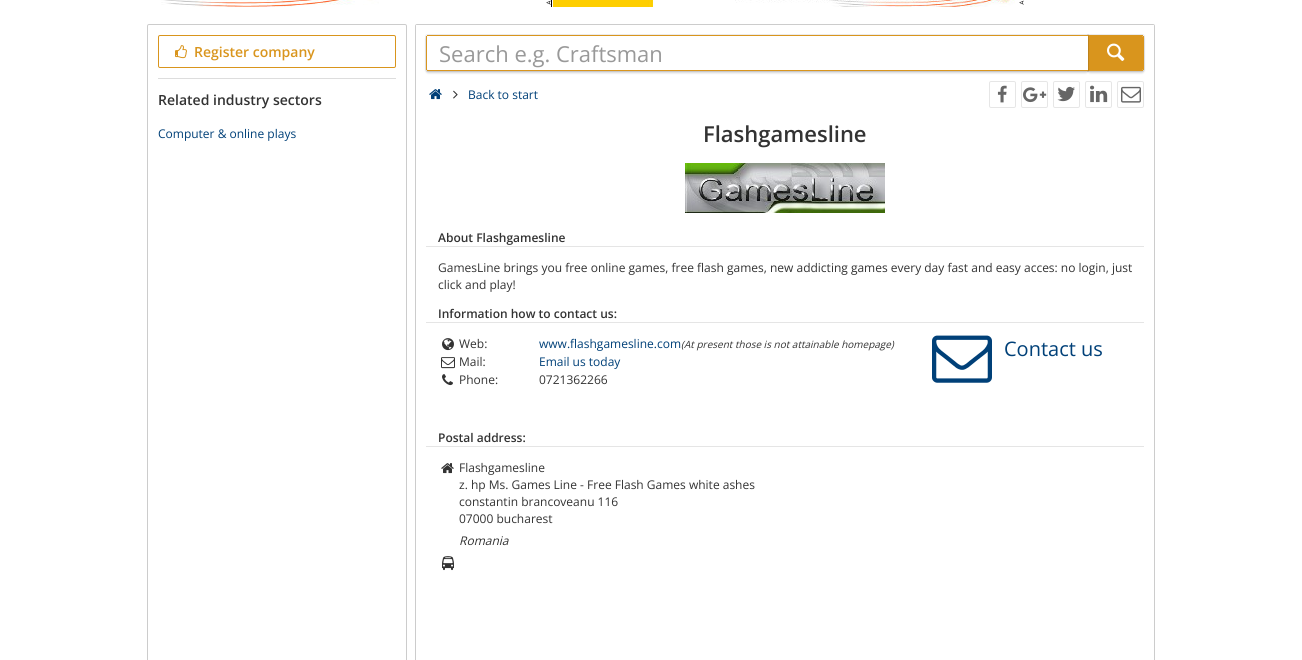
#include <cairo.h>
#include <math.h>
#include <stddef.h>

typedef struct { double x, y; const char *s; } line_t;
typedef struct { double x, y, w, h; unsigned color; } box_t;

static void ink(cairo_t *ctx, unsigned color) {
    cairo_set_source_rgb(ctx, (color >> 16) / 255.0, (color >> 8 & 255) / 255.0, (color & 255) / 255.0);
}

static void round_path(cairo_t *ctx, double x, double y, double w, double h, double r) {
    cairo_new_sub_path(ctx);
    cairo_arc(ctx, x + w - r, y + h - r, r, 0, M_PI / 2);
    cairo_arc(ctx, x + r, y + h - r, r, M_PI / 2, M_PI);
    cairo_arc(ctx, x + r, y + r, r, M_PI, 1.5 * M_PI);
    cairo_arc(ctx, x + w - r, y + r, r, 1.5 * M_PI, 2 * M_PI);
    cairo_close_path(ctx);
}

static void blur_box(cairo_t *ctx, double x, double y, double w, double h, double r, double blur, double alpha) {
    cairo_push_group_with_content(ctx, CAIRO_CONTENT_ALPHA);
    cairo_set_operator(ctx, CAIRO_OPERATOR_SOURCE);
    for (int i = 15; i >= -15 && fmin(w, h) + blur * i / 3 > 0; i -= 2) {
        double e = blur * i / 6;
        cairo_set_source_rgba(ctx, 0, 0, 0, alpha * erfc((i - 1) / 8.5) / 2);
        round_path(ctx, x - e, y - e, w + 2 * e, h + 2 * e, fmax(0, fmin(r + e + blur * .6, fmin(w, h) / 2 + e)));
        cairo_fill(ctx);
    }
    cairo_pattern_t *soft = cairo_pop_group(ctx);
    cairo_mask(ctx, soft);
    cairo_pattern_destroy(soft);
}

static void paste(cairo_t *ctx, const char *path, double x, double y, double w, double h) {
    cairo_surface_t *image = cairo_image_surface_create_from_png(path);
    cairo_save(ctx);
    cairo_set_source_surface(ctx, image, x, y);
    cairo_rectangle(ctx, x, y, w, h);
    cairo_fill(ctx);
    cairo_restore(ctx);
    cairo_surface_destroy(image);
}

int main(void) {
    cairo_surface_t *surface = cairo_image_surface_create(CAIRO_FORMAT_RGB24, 1302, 660);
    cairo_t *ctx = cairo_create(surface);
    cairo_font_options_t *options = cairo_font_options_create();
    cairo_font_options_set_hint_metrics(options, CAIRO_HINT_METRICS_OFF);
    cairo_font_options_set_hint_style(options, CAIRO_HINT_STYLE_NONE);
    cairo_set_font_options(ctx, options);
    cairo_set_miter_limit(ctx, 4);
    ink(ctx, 0xFFFFFF);
    cairo_paint(ctx);
    paste(ctx, "media/1.png", 161, 0, 218, 7);
    paste(ctx, "media/2.png", 546, 0, 5, 5);
    paste(ctx, "media/3.png", 551, 0, 464, 7);
    paste(ctx, "media/2.png", 1019, 0, 5, 5);
    round_path(ctx, 147.5, 24.5, 259, 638, 1.5);
    ink(ctx, 0xCCCCCC);
    cairo_set_line_width(ctx, 1);
    cairo_stroke(ctx);
    round_path(ctx, 158.5, 35.5, 237, 32, 1.5);
    ink(ctx, 0xD9951D);
    cairo_stroke(ctx);
    paste(ctx, "media/4.png", 175, 45, 12, 14);
    cairo_select_font_face(ctx, "Open Sans SemiBold", CAIRO_FONT_SLANT_NORMAL, CAIRO_FONT_WEIGHT_NORMAL);
    cairo_set_font_size(ctx, 14);
    cairo_move_to(ctx, 194, 57);
    cairo_show_text(ctx, "Register company");
    ink(ctx, 0xDDDDDD);
    cairo_rectangle(ctx, 158, 78, 238, 1);
    cairo_fill(ctx);
    ink(ctx, 0x333333);
    cairo_move_to(ctx, 158, 105);
    cairo_show_text(ctx, "Related industry sectors");
    cairo_select_font_face(ctx, "Open Sans", CAIRO_FONT_SLANT_NORMAL, CAIRO_FONT_WEIGHT_NORMAL);
    cairo_set_font_size(ctx, 12);
    ink(ctx, 0x004078);
    cairo_move_to(ctx, 158, 138);
    cairo_show_text(ctx, "Computer & online plays");
    round_path(ctx, 415.5, 24.5, 739, 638, 1.5);
    ink(ctx, 0xCCCCCC);
    cairo_stroke(ctx);
    ink(ctx, 0xFFFFFF);
    cairo_rectangle(ctx, 416, 25, 738, 1);
    cairo_fill(ctx);
    cairo_new_path(ctx);
    cairo_move_to(ctx, 1087.5, 34.5);
    cairo_line_to(ctx, 1142, 34.5);
    cairo_curve_to(ctx, 1143.5, 34.5, 1144.5, 35.5, 1144.5, 37);
    cairo_line_to(ctx, 1144.5, 69);
    cairo_curve_to(ctx, 1144.5, 70.5, 1143.5, 71.5, 1142, 71.5);
    cairo_line_to(ctx, 1087.5, 71.5);
    cairo_close_path(ctx);
    ink(ctx, 0xEBEBEB);
    cairo_stroke(ctx);
    ink(ctx, 0x000000);
    blur_box(ctx, 1088, 37, 56, 36, 2, 1, 0.16);
    ink(ctx, 0xD9951D);
    cairo_new_path(ctx);
    cairo_move_to(ctx, 1088, 36);
    cairo_line_to(ctx, 1142, 36);
    cairo_curve_to(ctx, 1142.5, 36, 1143, 36.5, 1143, 37);
    cairo_line_to(ctx, 1143, 69);
    cairo_curve_to(ctx, 1143, 69.5, 1142.5, 70, 1142, 70);
    cairo_line_to(ctx, 1088, 70);
    cairo_close_path(ctx);
    cairo_fill(ctx);
    cairo_rectangle(ctx, 1088, 35, 55, 1);
    cairo_fill(ctx);
    cairo_rectangle(ctx, 1088, 70, 55, 1);
    cairo_fill(ctx);
    cairo_new_path(ctx);
    cairo_move_to(ctx, 428, 34.5);
    cairo_line_to(ctx, 1088.5, 34.5);
    cairo_line_to(ctx, 1088.5, 71.5);
    cairo_line_to(ctx, 428, 71.5);
    cairo_curve_to(ctx, 426.5, 71.5, 425.5, 70.5, 425.5, 69);
    cairo_line_to(ctx, 425.5, 37);
    cairo_curve_to(ctx, 425.5, 35.5, 426.5, 34.5, 428, 34.5);
    cairo_close_path(ctx);
    cairo_set_source_rgba(ctx, 0, 0, 0, 0.08);
    cairo_stroke(ctx);
    ink(ctx, 0x000000);
    blur_box(ctx, 426, 37, 662, 36, 2, 1, 0.16);
    ink(ctx, 0xFFFFFF);
    cairo_new_path(ctx);
    cairo_move_to(ctx, 428, 36);
    cairo_line_to(ctx, 1088, 36);
    cairo_line_to(ctx, 1088, 70);
    cairo_line_to(ctx, 428, 70);
    cairo_curve_to(ctx, 427.5, 70, 427, 69.5, 427, 69);
    cairo_line_to(ctx, 427, 37);
    cairo_curve_to(ctx, 427, 36.5, 427.5, 36, 428, 36);
    cairo_close_path(ctx);
    cairo_fill(ctx);
    {
        static const box_t items[] = {
            {427, 35, 661, 1, 0xD9951D},
            {427, 70, 661, 1, 0xD9951D},
            {426, 36, 1, 34, 0xD9951D},
        };
        for (size_t i = 0; i < sizeof items / sizeof *items; i++) {
            ink(ctx, items[i].color);
            cairo_rectangle(ctx, items[i].x, items[i].y, items[i].w, items[i].h);
            cairo_fill(ctx);
        }
    }
    cairo_set_font_size(ctx, 22);
    ink(ctx, 0x999999);
    cairo_move_to(ctx, 439, 62);
    cairo_show_text(ctx, "Search e.g. Craftsman");
    ink(ctx, 0xD9951D);
    cairo_rectangle(ctx, 1143, 36, 1, 34);
    cairo_fill(ctx);
    paste(ctx, "media/5.png", 1107, 43, 18, 18);
    paste(ctx, "media/6.png", 429, 89, 13, 11);
    paste(ctx, "media/7.png", 453, 90, 5, 9);
    cairo_set_font_size(ctx, 12);
    ink(ctx, 0x004078);
    cairo_move_to(ctx, 468, 99);
    cairo_show_text(ctx, "Back to start");
    round_path(ctx, 989.5, 81.5, 26, 26, 1.5);
    ink(ctx, 0xE6E6E6);
    cairo_stroke(ctx);
    paste(ctx, "media/8.png", 997, 85, 10, 18);
    round_path(ctx, 1021.5, 81.5, 26, 26, 1.5);
    cairo_stroke(ctx);
    paste(ctx, "media/9.png", 1023, 87, 24, 16);
    round_path(ctx, 1053.5, 81.5, 26, 26, 1.5);
    cairo_stroke(ctx);
    paste(ctx, "media/10.png", 1057, 86, 18, 16);
    round_path(ctx, 1085.5, 81.5, 26, 26, 1.5);
    cairo_stroke(ctx);
    paste(ctx, "media/11.png", 1090, 85, 18, 18);
    round_path(ctx, 1117.5, 81.5, 26, 26, 1.5);
    cairo_stroke(ctx);
    paste(ctx, "media/12.png", 1121, 86, 20, 17);
    cairo_select_font_face(ctx, "Open Sans SemiBold", CAIRO_FONT_SLANT_NORMAL, CAIRO_FONT_WEIGHT_NORMAL);
    cairo_set_font_size(ctx, 22);
    ink(ctx, 0x333333);
    cairo_move_to(ctx, 703, 142);
    cairo_show_text(ctx, "Flashgamesline");
    paste(ctx, "media/13.png", 685, 163, 200, 50);
    cairo_set_font_size(ctx, 12);
    cairo_move_to(ctx, 438, 242);
    cairo_show_text(ctx, "About Flashgamesline");
    ink(ctx, 0xE5E5E5);
    cairo_rectangle(ctx, 426, 246, 718, 1);
    cairo_fill(ctx);
    cairo_select_font_face(ctx, "Open Sans", CAIRO_FONT_SLANT_NORMAL, CAIRO_FONT_WEIGHT_NORMAL);
    ink(ctx, 0x333333);
    cairo_move_to(ctx, 438, 272);
    cairo_show_text(ctx, "GamesLine brings you free online games, free flash games, new addicting games every day fast and easy acces: no login, just");
    cairo_move_to(ctx, 438, 289);
    cairo_show_text(ctx, "click and play!");
    cairo_select_font_face(ctx, "Open Sans SemiBold", CAIRO_FONT_SLANT_NORMAL, CAIRO_FONT_WEIGHT_NORMAL);
    cairo_move_to(ctx, 438, 318);
    cairo_show_text(ctx, "Information how to contact us:");
    ink(ctx, 0xE5E5E5);
    cairo_rectangle(ctx, 426, 322, 718, 1);
    cairo_fill(ctx);
    paste(ctx, "media/14.png", 442, 338, 12, 13);
    cairo_select_font_face(ctx, "Open Sans", CAIRO_FONT_SLANT_NORMAL, CAIRO_FONT_WEIGHT_NORMAL);
    ink(ctx, 0x333333);
    cairo_move_to(ctx, 459, 348);
    cairo_show_text(ctx, "Web:");
    ink(ctx, 0x004078);
    cairo_move_to(ctx, 539, 348);
    cairo_show_text(ctx, "www.flashgamesline.com");
    cairo_select_font_face(ctx, "Open Sans", CAIRO_FONT_SLANT_ITALIC, CAIRO_FONT_WEIGHT_NORMAL);
    cairo_set_font_size(ctx, 10);
    ink(ctx, 0x333333);
    cairo_move_to(ctx, 681, 348);
    cairo_show_text(ctx, "(At present those is not attainable homepage)");
    paste(ctx, "media/15.png", 441, 357, 14, 12);
    cairo_select_font_face(ctx, "Open Sans", CAIRO_FONT_SLANT_NORMAL, CAIRO_FONT_WEIGHT_NORMAL);
    cairo_set_font_size(ctx, 12);
    cairo_move_to(ctx, 459, 366);
    cairo_show_text(ctx, "Mail:");
    ink(ctx, 0x004078);
    cairo_move_to(ctx, 539, 366);
    cairo_show_text(ctx, "Email us today");
    paste(ctx, "media/16.png", 442, 374, 11, 12);
    ink(ctx, 0x333333);
    cairo_move_to(ctx, 459, 384);
    cairo_show_text(ctx, "Phone:");
    cairo_move_to(ctx, 539, 384);
    cairo_show_text(ctx, "0721362266");
    paste(ctx, "media/17.png", 932, 335, 60, 48);
    cairo_set_font_size(ctx, 20);
    ink(ctx, 0x004078);
    cairo_move_to(ctx, 1004, 356);
    cairo_show_text(ctx, "Contact us");
    cairo_select_font_face(ctx, "Open Sans SemiBold", CAIRO_FONT_SLANT_NORMAL, CAIRO_FONT_WEIGHT_NORMAL);
    cairo_set_font_size(ctx, 12);
    ink(ctx, 0x333333);
    cairo_move_to(ctx, 438, 442);
    cairo_show_text(ctx, "Postal address:");
    ink(ctx, 0xE5E5E5);
    cairo_rectangle(ctx, 426, 446, 718, 1);
    cairo_fill(ctx);
    paste(ctx, "media/18.png", 441, 463, 13, 11);
    cairo_select_font_face(ctx, "Open Sans", CAIRO_FONT_SLANT_NORMAL, CAIRO_FONT_WEIGHT_NORMAL);
    ink(ctx, 0x333333);
    {
        static const line_t items[] = {
            {459, 472, "Flashgamesline"},
            {459, 489, "z. hp Ms. Games Line - Free Flash Games white ashes"},
            {459, 506, "constantin brancoveanu 116"},
            {459, 523, "07000 bucharest"},
        };
        for (size_t i = 0; i < sizeof items / sizeof *items; i++) {
            cairo_move_to(ctx, items[i].x, items[i].y);
            cairo_show_text(ctx, items[i].s);
        }
    }
    cairo_select_font_face(ctx, "Open Sans", CAIRO_FONT_SLANT_ITALIC, CAIRO_FONT_WEIGHT_NORMAL);
    cairo_move_to(ctx, 459, 545);
    cairo_show_text(ctx, "Romania");
    paste(ctx, "media/19.png", 442, 556, 12, 15);
    cairo_surface_write_to_png(surface, "image.png");
    cairo_font_options_destroy(options);
    cairo_destroy(ctx);
    cairo_surface_destroy(surface);
    return 0;
}
